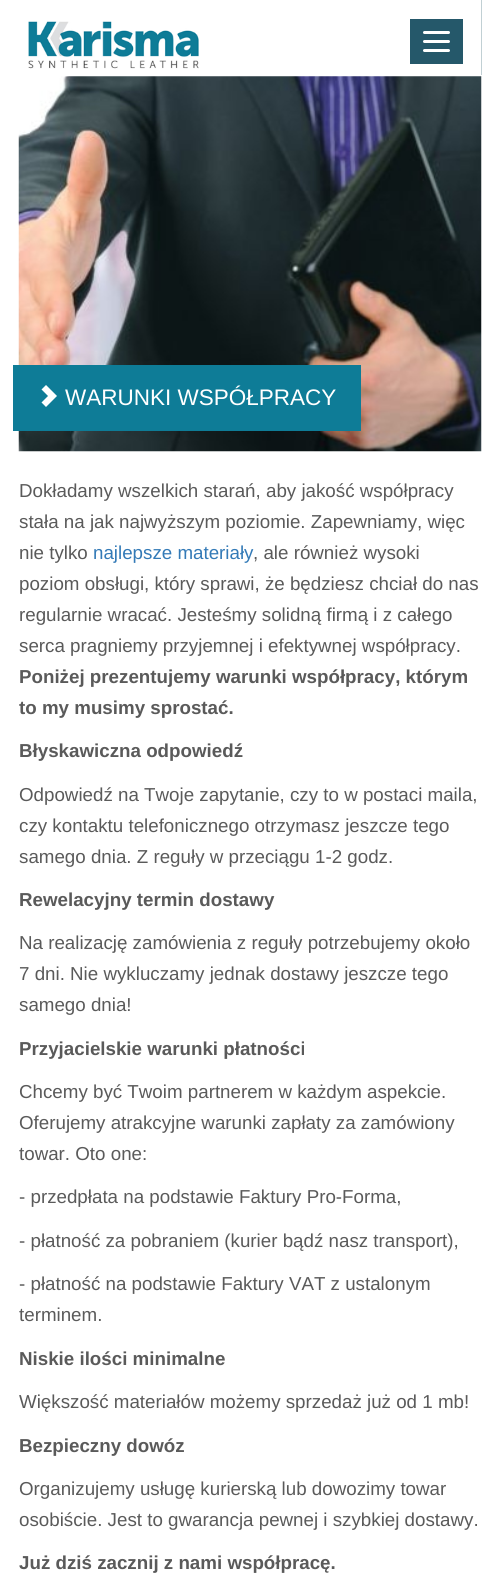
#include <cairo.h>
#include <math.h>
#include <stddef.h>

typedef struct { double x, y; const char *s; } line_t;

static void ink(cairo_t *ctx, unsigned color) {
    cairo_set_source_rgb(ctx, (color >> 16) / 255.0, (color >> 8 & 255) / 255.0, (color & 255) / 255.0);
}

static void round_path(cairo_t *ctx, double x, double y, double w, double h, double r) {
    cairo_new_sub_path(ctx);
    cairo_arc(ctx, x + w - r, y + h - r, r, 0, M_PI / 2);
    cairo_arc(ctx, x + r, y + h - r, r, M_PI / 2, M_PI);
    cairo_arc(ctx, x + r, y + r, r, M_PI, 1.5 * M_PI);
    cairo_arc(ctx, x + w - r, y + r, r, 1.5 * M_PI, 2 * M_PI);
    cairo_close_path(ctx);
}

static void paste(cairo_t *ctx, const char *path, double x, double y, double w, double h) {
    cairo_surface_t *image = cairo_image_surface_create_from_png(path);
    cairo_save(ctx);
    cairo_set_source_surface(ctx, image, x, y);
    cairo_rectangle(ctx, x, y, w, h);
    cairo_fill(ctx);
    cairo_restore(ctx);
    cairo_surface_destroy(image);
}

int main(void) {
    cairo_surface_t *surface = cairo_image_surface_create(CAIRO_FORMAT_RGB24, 499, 1581);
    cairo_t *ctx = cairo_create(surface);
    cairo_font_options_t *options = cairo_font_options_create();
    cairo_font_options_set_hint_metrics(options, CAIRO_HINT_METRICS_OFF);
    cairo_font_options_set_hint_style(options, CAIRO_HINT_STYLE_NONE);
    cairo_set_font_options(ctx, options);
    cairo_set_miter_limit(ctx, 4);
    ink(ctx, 0xFFFFFF);
    cairo_paint(ctx);
    paste(ctx, "media/1.png", 481, 0, 1, 75);
    paste(ctx, "media/2.png", 28, 21, 171, 48);
    ink(ctx, 0x25586A);
    cairo_rectangle(ctx, 410, 19, 53, 45);
    cairo_fill(ctx);
    ink(ctx, 0xFFFFFF);
    round_path(ctx, 423, 31, 27, 3, 1.5);
    cairo_fill(ctx);
    round_path(ctx, 423, 40, 27, 3, 1.5);
    cairo_fill(ctx);
    round_path(ctx, 423, 49, 27, 3, 1.5);
    cairo_fill(ctx);
    paste(ctx, "media/3.png", 18, 76, 464, 376);
    ink(ctx, 0x0E7C97);
    cairo_rectangle(ctx, 13, 365, 348, 66);
    cairo_fill(ctx);
    ink(ctx, 0xFFFFFF);
    cairo_new_path(ctx);
    cairo_move_to(ctx, 41.5, 402.5);
    cairo_line_to(ctx, 48, 396);
    cairo_line_to(ctx, 41.5, 389.5);
    cairo_line_to(ctx, 46, 385);
    cairo_line_to(ctx, 57, 396);
    cairo_line_to(ctx, 46, 407);
    cairo_close_path(ctx);
    cairo_fill(ctx);
    cairo_select_font_face(ctx, "Liberation Sans", CAIRO_FONT_SLANT_NORMAL, CAIRO_FONT_WEIGHT_NORMAL);
    cairo_set_font_size(ctx, 22.5);
    cairo_move_to(ctx, 65, 405);
    cairo_show_text(ctx, "WARUNKI WSPÓŁPRACY");
    cairo_set_font_size(ctx, 18.75);
    ink(ctx, 0x5A5A5A);
    {
        static const line_t items[] = {
            {19, 497, "Dokładamy wszelkich starań, aby jakość współpracy"},
            {19, 528, "stała na jak najwyższym poziomie. Zapewniamy, więc"},
            {19, 559, "nie tylko"},
        };
        for (size_t i = 0; i < sizeof items / sizeof *items; i++) {
            cairo_move_to(ctx, items[i].x, items[i].y);
            cairo_show_text(ctx, items[i].s);
        }
    }
    ink(ctx, 0x337AB7);
    cairo_move_to(ctx, 93, 559);
    cairo_show_text(ctx, "najlepsze materiały");
    ink(ctx, 0x5A5A5A);
    {
        static const line_t items[] = {
            {253, 559, ", ale również wysoki"},
            {19, 590, "poziom obsługi, który sprawi, że będziesz chciał do nas"},
            {19, 621, "regularnie wracać. Jesteśmy solidną firmą i z całego"},
            {19, 652, "serca pragniemy przyjemnej i efektywnej współpracy."},
        };
        for (size_t i = 0; i < sizeof items / sizeof *items; i++) {
            cairo_move_to(ctx, items[i].x, items[i].y);
            cairo_show_text(ctx, items[i].s);
        }
    }
    cairo_select_font_face(ctx, "Liberation Sans", CAIRO_FONT_SLANT_NORMAL, CAIRO_FONT_WEIGHT_BOLD);
    {
        static const line_t items[] = {
            {19, 683, "Poniżej prezentujemy warunki współpracy, którym"},
            {19, 714, "to my musimy sprostać."},
            {19, 757, "Błyskawiczna odpowiedź"},
        };
        for (size_t i = 0; i < sizeof items / sizeof *items; i++) {
            cairo_move_to(ctx, items[i].x, items[i].y);
            cairo_show_text(ctx, items[i].s);
        }
    }
    cairo_select_font_face(ctx, "Liberation Sans", CAIRO_FONT_SLANT_NORMAL, CAIRO_FONT_WEIGHT_NORMAL);
    {
        static const line_t items[] = {
            {19, 801, "Odpowiedź na Twoje zapytanie, czy to w postaci maila,"},
            {19, 832, "czy kontaktu telefonicznego otrzymasz jeszcze tego"},
            {19, 863, "samego dnia. Z reguły w przeciągu 1-2 godz."},
        };
        for (size_t i = 0; i < sizeof items / sizeof *items; i++) {
            cairo_move_to(ctx, items[i].x, items[i].y);
            cairo_show_text(ctx, items[i].s);
        }
    }
    cairo_select_font_face(ctx, "Liberation Sans", CAIRO_FONT_SLANT_NORMAL, CAIRO_FONT_WEIGHT_BOLD);
    cairo_move_to(ctx, 19, 906);
    cairo_show_text(ctx, "Rewelacyjny termin dostawy");
    cairo_select_font_face(ctx, "Liberation Sans", CAIRO_FONT_SLANT_NORMAL, CAIRO_FONT_WEIGHT_NORMAL);
    {
        static const line_t items[] = {
            {19, 949, "Na realizację zamówienia z reguły potrzebujemy około"},
            {19, 980, "7 dni. Nie wykluczamy jednak dostawy jeszcze tego"},
            {19, 1011, "samego dnia!"},
        };
        for (size_t i = 0; i < sizeof items / sizeof *items; i++) {
            cairo_move_to(ctx, items[i].x, items[i].y);
            cairo_show_text(ctx, items[i].s);
        }
    }
    cairo_select_font_face(ctx, "Liberation Sans", CAIRO_FONT_SLANT_NORMAL, CAIRO_FONT_WEIGHT_BOLD);
    cairo_move_to(ctx, 19, 1055);
    cairo_show_text(ctx, "Przyjacielskie warunki płatności");
    cairo_select_font_face(ctx, "Liberation Sans", CAIRO_FONT_SLANT_NORMAL, CAIRO_FONT_WEIGHT_NORMAL);
    {
        static const line_t items[] = {
            {19, 1098, "Chcemy być Twoim partnerem w każdym aspekcie."},
            {19, 1129, "Oferujemy atrakcyjne warunki zapłaty za zamówiony"},
            {19, 1160, "towar. Oto one:"},
            {19, 1203, "- przedpłata na podstawie Faktury Pro-Forma,"},
            {19, 1247, "- płatność za pobraniem (kurier bądź nasz transport),"},
            {19, 1290, "- płatność na podstawie Faktury VAT z ustalonym"},
            {19, 1321, "terminem."},
        };
        for (size_t i = 0; i < sizeof items / sizeof *items; i++) {
            cairo_move_to(ctx, items[i].x, items[i].y);
            cairo_show_text(ctx, items[i].s);
        }
    }
    cairo_select_font_face(ctx, "Liberation Sans", CAIRO_FONT_SLANT_NORMAL, CAIRO_FONT_WEIGHT_BOLD);
    cairo_move_to(ctx, 19, 1365);
    cairo_show_text(ctx, "Niskie ilości minimalne");
    cairo_select_font_face(ctx, "Liberation Sans", CAIRO_FONT_SLANT_NORMAL, CAIRO_FONT_WEIGHT_NORMAL);
    cairo_move_to(ctx, 19, 1408);
    cairo_show_text(ctx, "Większość materiałów możemy sprzedaż już od 1 mb!");
    cairo_select_font_face(ctx, "Liberation Sans", CAIRO_FONT_SLANT_NORMAL, CAIRO_FONT_WEIGHT_BOLD);
    cairo_move_to(ctx, 19, 1452);
    cairo_show_text(ctx, "Bezpieczny dowóz");
    cairo_select_font_face(ctx, "Liberation Sans", CAIRO_FONT_SLANT_NORMAL, CAIRO_FONT_WEIGHT_NORMAL);
    cairo_move_to(ctx, 19, 1495);
    cairo_show_text(ctx, "Organizujemy usługę kurierską lub dowozimy towar");
    cairo_move_to(ctx, 19, 1526);
    cairo_show_text(ctx, "osobiście. Jest to gwarancja pewnej i szybkiej dostawy.");
    cairo_select_font_face(ctx, "Liberation Sans", CAIRO_FONT_SLANT_NORMAL, CAIRO_FONT_WEIGHT_BOLD);
    cairo_move_to(ctx, 19, 1569);
    cairo_show_text(ctx, "Już dziś zacznij z nami współpracę.");
    cairo_surface_write_to_png(surface, "image.png");
    cairo_font_options_destroy(options);
    cairo_destroy(ctx);
    cairo_surface_destroy(surface);
    return 0;
}
